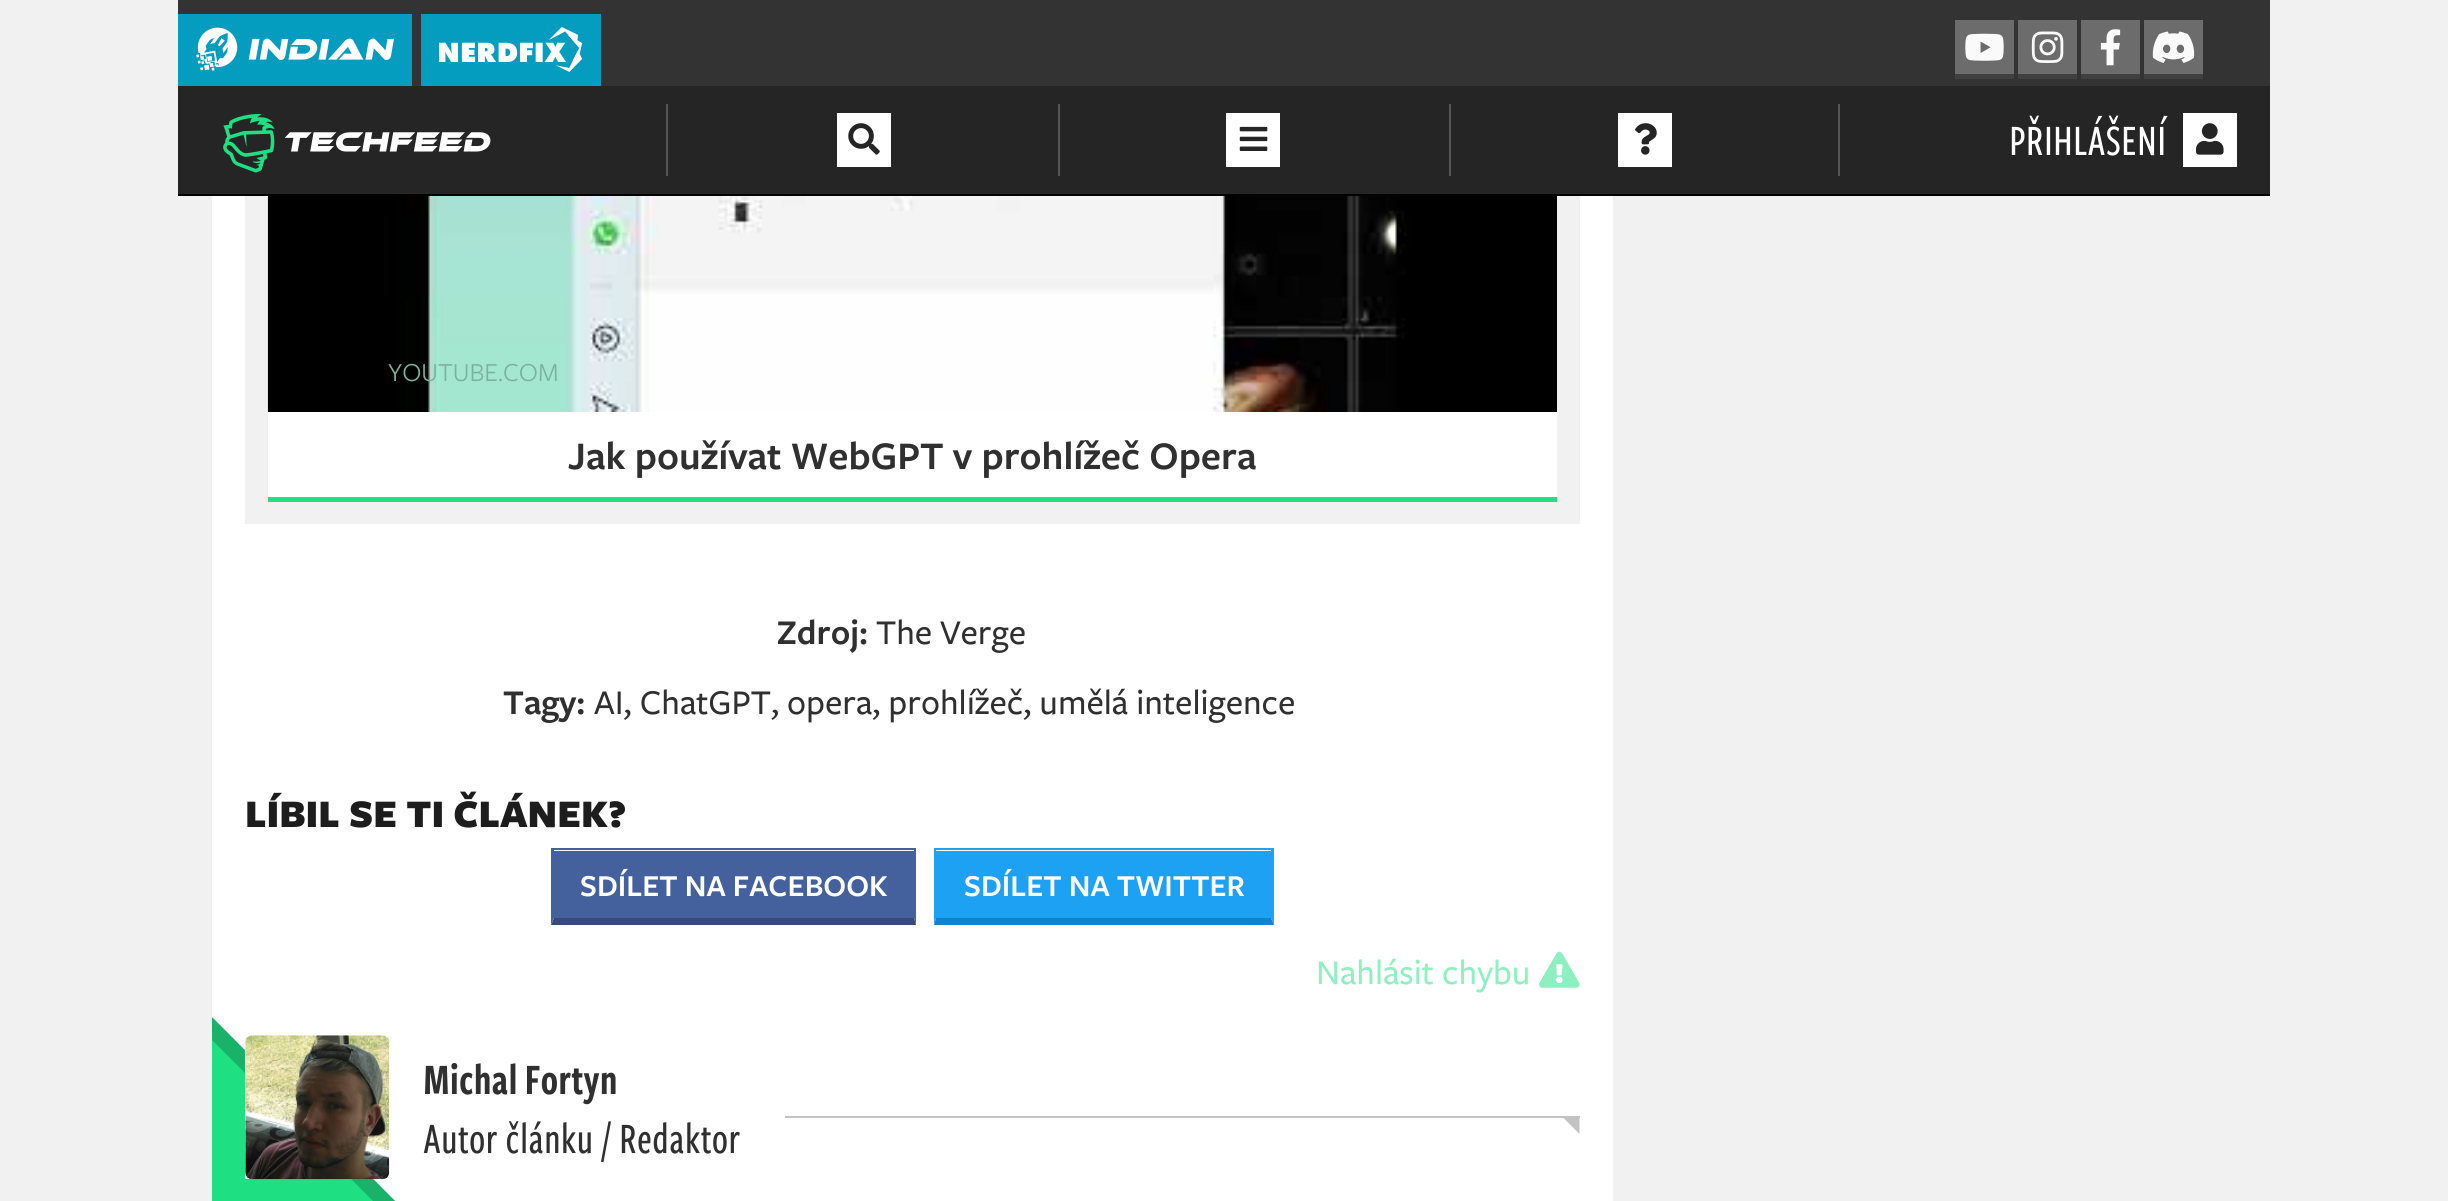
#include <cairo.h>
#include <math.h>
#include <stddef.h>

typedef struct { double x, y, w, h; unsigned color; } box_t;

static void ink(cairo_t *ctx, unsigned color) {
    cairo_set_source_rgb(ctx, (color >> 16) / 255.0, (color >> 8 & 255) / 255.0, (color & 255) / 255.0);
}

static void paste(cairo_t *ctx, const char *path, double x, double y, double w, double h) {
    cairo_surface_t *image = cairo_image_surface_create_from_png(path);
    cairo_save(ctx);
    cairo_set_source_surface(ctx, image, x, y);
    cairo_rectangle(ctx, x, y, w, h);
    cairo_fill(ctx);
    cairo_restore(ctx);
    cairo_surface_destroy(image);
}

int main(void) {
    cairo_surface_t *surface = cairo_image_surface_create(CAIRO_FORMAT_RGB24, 2448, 1201);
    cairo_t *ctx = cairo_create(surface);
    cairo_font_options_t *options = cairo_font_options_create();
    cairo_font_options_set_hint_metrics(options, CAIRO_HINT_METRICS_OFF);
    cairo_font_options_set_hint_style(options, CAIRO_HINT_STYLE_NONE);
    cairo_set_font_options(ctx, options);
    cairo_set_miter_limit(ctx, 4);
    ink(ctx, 0xF1F1F1);
    cairo_paint(ctx);
    {
        static const box_t items[] = {
            {178, 86, 2092, 108, 0x252525},
            {178, 194, 2092, 2, 0x000000},
            {178, 0, 2092, 86, 0x333333},
            {178, 14, 234, 72, 0x049DBF},
        };
        for (size_t i = 0; i < sizeof items / sizeof *items; i++) {
            ink(ctx, items[i].color);
            cairo_rectangle(ctx, items[i].x, items[i].y, items[i].w, items[i].h);
            cairo_fill(ctx);
        }
    }
    paste(ctx, "media/1.png", 196, 27, 198, 44);
    cairo_rectangle(ctx, 421, 14, 180, 72);
    cairo_fill(ctx);
    paste(ctx, "media/2.png", 439, 27, 144, 45);
    ink(ctx, 0x6C6C6C);
    cairo_rectangle(ctx, 1955, 20, 59, 54);
    cairo_fill(ctx);
    ink(ctx, 0x404040);
    cairo_rectangle(ctx, 1955, 74, 59, 5);
    cairo_fill(ctx);
    paste(ctx, "media/3.png", 1965, 33, 39, 28);
    ink(ctx, 0x6C6C6C);
    cairo_rectangle(ctx, 2018, 20, 59, 54);
    cairo_fill(ctx);
    ink(ctx, 0x404040);
    cairo_rectangle(ctx, 2018, 74, 59, 5);
    cairo_fill(ctx);
    paste(ctx, "media/4.png", 2031, 31, 33, 32);
    ink(ctx, 0x6C6C6C);
    cairo_rectangle(ctx, 2081, 20, 59, 54);
    cairo_fill(ctx);
    ink(ctx, 0x404040);
    cairo_rectangle(ctx, 2081, 74, 59, 5);
    cairo_fill(ctx);
    paste(ctx, "media/5.png", 2100, 29, 21, 37);
    ink(ctx, 0x6C6C6C);
    cairo_rectangle(ctx, 2144, 20, 59, 54);
    cairo_fill(ctx);
    ink(ctx, 0x404040);
    cairo_rectangle(ctx, 2144, 74, 59, 5);
    cairo_fill(ctx);
    paste(ctx, "media/6.png", 2152, 31, 43, 32);
    paste(ctx, "media/7.png", 223, 113, 268, 60);
    ink(ctx, 0x555555);
    cairo_rectangle(ctx, 666, 104, 2, 72);
    cairo_fill(ctx);
    ink(ctx, 0xFFFFFF);
    cairo_rectangle(ctx, 837, 113, 54, 54);
    cairo_fill(ctx);
    paste(ctx, "media/8.png", 848, 123, 32, 32);
    ink(ctx, 0x555555);
    cairo_rectangle(ctx, 1058, 104, 2, 72);
    cairo_fill(ctx);
    ink(ctx, 0xFFFFFF);
    cairo_rectangle(ctx, 1226, 113, 54, 54);
    cairo_fill(ctx);
    paste(ctx, "media/9.png", 1239, 126, 29, 25);
    ink(ctx, 0x555555);
    cairo_rectangle(ctx, 1449, 104, 2, 72);
    cairo_fill(ctx);
    ink(ctx, 0xFFFFFF);
    cairo_rectangle(ctx, 1618, 113, 54, 54);
    cairo_fill(ctx);
    paste(ctx, "media/10.png", 1635, 123, 22, 32);
    ink(ctx, 0x555555);
    cairo_rectangle(ctx, 1838, 104, 2, 72);
    cairo_fill(ctx);
    cairo_select_font_face(ctx, "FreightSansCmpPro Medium", CAIRO_FONT_SLANT_NORMAL, CAIRO_FONT_WEIGHT_NORMAL);
    cairo_set_font_size(ctx, 45);
    ink(ctx, 0xFFFFFF);
    cairo_move_to(ctx, 2009, 155);
    cairo_show_text(ctx, "PŘIHLÁŠENÍ");
    cairo_rectangle(ctx, 2183, 113, 54, 54);
    cairo_fill(ctx);
    paste(ctx, "media/11.png", 2196, 123, 28, 32);
    cairo_rectangle(ctx, 212, 196, 1401, 1005);
    cairo_fill(ctx);
    ink(ctx, 0xF1F1F1);
    cairo_rectangle(ctx, 245, 196, 1335, 328);
    cairo_fill(ctx);
    paste(ctx, "media/12.png", 267, 196, 1290, 216);
    cairo_select_font_face(ctx, "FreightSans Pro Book", CAIRO_FONT_SLANT_NORMAL, CAIRO_FONT_WEIGHT_NORMAL);
    cairo_set_font_size(ctx, 27);
    ink(ctx, 0x7DB19F);
    cairo_move_to(ctx, 388, 381);
    cairo_show_text(ctx, "YOUTUBE.COM");
    ink(ctx, 0xFFFFFF);
    cairo_rectangle(ctx, 268, 412, 1289, 85);
    cairo_fill(ctx);
    ink(ctx, 0x1EE082);
    cairo_rectangle(ctx, 268, 497, 1289, 5);
    cairo_fill(ctx);
    cairo_select_font_face(ctx, "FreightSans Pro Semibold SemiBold", CAIRO_FONT_SLANT_NORMAL, CAIRO_FONT_WEIGHT_NORMAL);
    cairo_set_font_size(ctx, 40.5);
    ink(ctx, 0x303030);
    cairo_move_to(ctx, 568, 469);
    cairo_show_text(ctx, "Jak používat WebGPT v prohlížeč Opera");
    cairo_set_font_size(ctx, 36);
    cairo_move_to(ctx, 777, 644);
    cairo_show_text(ctx, "Zdroj:");
    cairo_select_font_face(ctx, "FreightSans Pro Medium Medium", CAIRO_FONT_SLANT_NORMAL, CAIRO_FONT_WEIGHT_NORMAL);
    cairo_move_to(ctx, 876, 644);
    cairo_show_text(ctx, "The Verge");
    cairo_select_font_face(ctx, "FreightSans Pro Semibold SemiBold", CAIRO_FONT_SLANT_NORMAL, CAIRO_FONT_WEIGHT_NORMAL);
    cairo_move_to(ctx, 503, 714);
    cairo_show_text(ctx, "Tagy:");
    cairo_select_font_face(ctx, "FreightSans Pro Medium Medium", CAIRO_FONT_SLANT_NORMAL, CAIRO_FONT_WEIGHT_NORMAL);
    cairo_move_to(ctx, 594, 714);
    cairo_show_text(ctx, "AI, ChatGPT, opera, prohlížeč, umělá inteligence");
    cairo_select_font_face(ctx, "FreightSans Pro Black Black", CAIRO_FONT_SLANT_NORMAL, CAIRO_FONT_WEIGHT_NORMAL);
    cairo_set_font_size(ctx, 40.5);
    ink(ctx, 0x1D1D1D);
    cairo_move_to(ctx, 245, 827);
    cairo_show_text(ctx, "LÍBIL SE TI ČLÁNEK?");
    ink(ctx, 0x45619D);
    cairo_rectangle(ctx, 554, 851, 360, 67);
    cairo_fill(ctx);
    cairo_rectangle(ctx, 551, 848, 365, 2);
    cairo_fill(ctx);
    cairo_new_path(ctx);
    cairo_move_to(ctx, 916, 848);
    cairo_line_to(ctx, 916, 925);
    cairo_line_to(ctx, 914, 918);
    cairo_line_to(ctx, 914, 850);
    cairo_close_path(ctx);
    cairo_fill(ctx);
    ink(ctx, 0x354B7A);
    cairo_new_path(ctx);
    cairo_move_to(ctx, 916, 925);
    cairo_line_to(ctx, 551, 925);
    cairo_line_to(ctx, 554, 918);
    cairo_line_to(ctx, 914, 918);
    cairo_close_path(ctx);
    cairo_fill(ctx);
    ink(ctx, 0x45619D);
    cairo_new_path(ctx);
    cairo_move_to(ctx, 551, 925);
    cairo_line_to(ctx, 551, 848);
    cairo_line_to(ctx, 554, 850);
    cairo_line_to(ctx, 554, 918);
    cairo_close_path(ctx);
    cairo_fill(ctx);
    cairo_select_font_face(ctx, "FreightSans Pro Semibold SemiBold", CAIRO_FONT_SLANT_NORMAL, CAIRO_FONT_WEIGHT_NORMAL);
    cairo_set_font_size(ctx, 31.5);
    ink(ctx, 0xFFFFFF);
    cairo_move_to(ctx, 580, 896);
    cairo_show_text(ctx, "SDÍLET NA FACEBOOK");
    ink(ctx, 0x1DA1F2);
    cairo_rectangle(ctx, 936, 851, 335, 67);
    cairo_fill(ctx);
    cairo_rectangle(ctx, 934, 848, 340, 2);
    cairo_fill(ctx);
    cairo_new_path(ctx);
    cairo_move_to(ctx, 1274, 848);
    cairo_line_to(ctx, 1274, 925);
    cairo_line_to(ctx, 1271, 918);
    cairo_line_to(ctx, 1271, 850);
    cairo_close_path(ctx);
    cairo_fill(ctx);
    ink(ctx, 0x0C85D0);
    cairo_new_path(ctx);
    cairo_move_to(ctx, 1274, 925);
    cairo_line_to(ctx, 934, 925);
    cairo_line_to(ctx, 936, 918);
    cairo_line_to(ctx, 1271, 918);
    cairo_close_path(ctx);
    cairo_fill(ctx);
    ink(ctx, 0x1DA1F2);
    cairo_new_path(ctx);
    cairo_move_to(ctx, 934, 925);
    cairo_line_to(ctx, 934, 848);
    cairo_line_to(ctx, 936, 850);
    cairo_line_to(ctx, 936, 918);
    cairo_close_path(ctx);
    cairo_fill(ctx);
    ink(ctx, 0xFFFFFF);
    cairo_move_to(ctx, 964, 896);
    cairo_show_text(ctx, "SDÍLET NA TWITTER");
    cairo_select_font_face(ctx, "FreightSans Pro Medium Medium", CAIRO_FONT_SLANT_NORMAL, CAIRO_FONT_WEIGHT_NORMAL);
    cairo_set_font_size(ctx, 36);
    ink(ctx, 0x8FF0C1);
    cairo_move_to(ctx, 1316, 984);
    cairo_show_text(ctx, "Nahlásit chybu");
    paste(ctx, "media/13.png", 1539, 951, 41, 37);
    ink(ctx, 0x18B368);
    cairo_new_path(ctx);
    cairo_move_to(ctx, 212, 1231);
    cairo_line_to(ctx, 212, 1017);
    cairo_line_to(ctx, 425, 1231);
    cairo_close_path(ctx);
    cairo_fill(ctx);
    ink(ctx, 0x1EE082);
    cairo_new_path(ctx);
    cairo_move_to(ctx, 212, 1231);
    cairo_line_to(ctx, 212, 1040);
    cairo_line_to(ctx, 403, 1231);
    cairo_close_path(ctx);
    cairo_fill(ctx);
    ink(ctx, 0xFFFFFF);
    cairo_rectangle(ctx, 245, 1050, 129, 129);
    cairo_fill(ctx);
    paste(ctx, "media/14.png", 245, 1035, 145, 145);
    cairo_select_font_face(ctx, "FreightSansCmpPro SemiBold", CAIRO_FONT_SLANT_NORMAL, CAIRO_FONT_WEIGHT_NORMAL);
    cairo_set_font_size(ctx, 45);
    ink(ctx, 0x303030);
    cairo_move_to(ctx, 423, 1094);
    cairo_show_text(ctx, "Michal Fortyn");
    cairo_select_font_face(ctx, "FreightSansCmpPro Medium", CAIRO_FONT_SLANT_NORMAL, CAIRO_FONT_WEIGHT_NORMAL);
    cairo_move_to(ctx, 423, 1153);
    cairo_show_text(ctx, "Autor článku / Redaktor");
    ink(ctx, 0xC3C3C3);
    cairo_rectangle(ctx, 785, 1116, 795, 2);
    cairo_fill(ctx);
    cairo_new_path(ctx);
    cairo_move_to(ctx, 1579.5, 1116);
    cairo_line_to(ctx, 1579.5, 1134);
    cairo_line_to(ctx, 1561.5, 1116);
    cairo_close_path(ctx);
    cairo_fill(ctx);
    cairo_surface_write_to_png(surface, "image.png");
    cairo_font_options_destroy(options);
    cairo_destroy(ctx);
    cairo_surface_destroy(surface);
    return 0;
}
